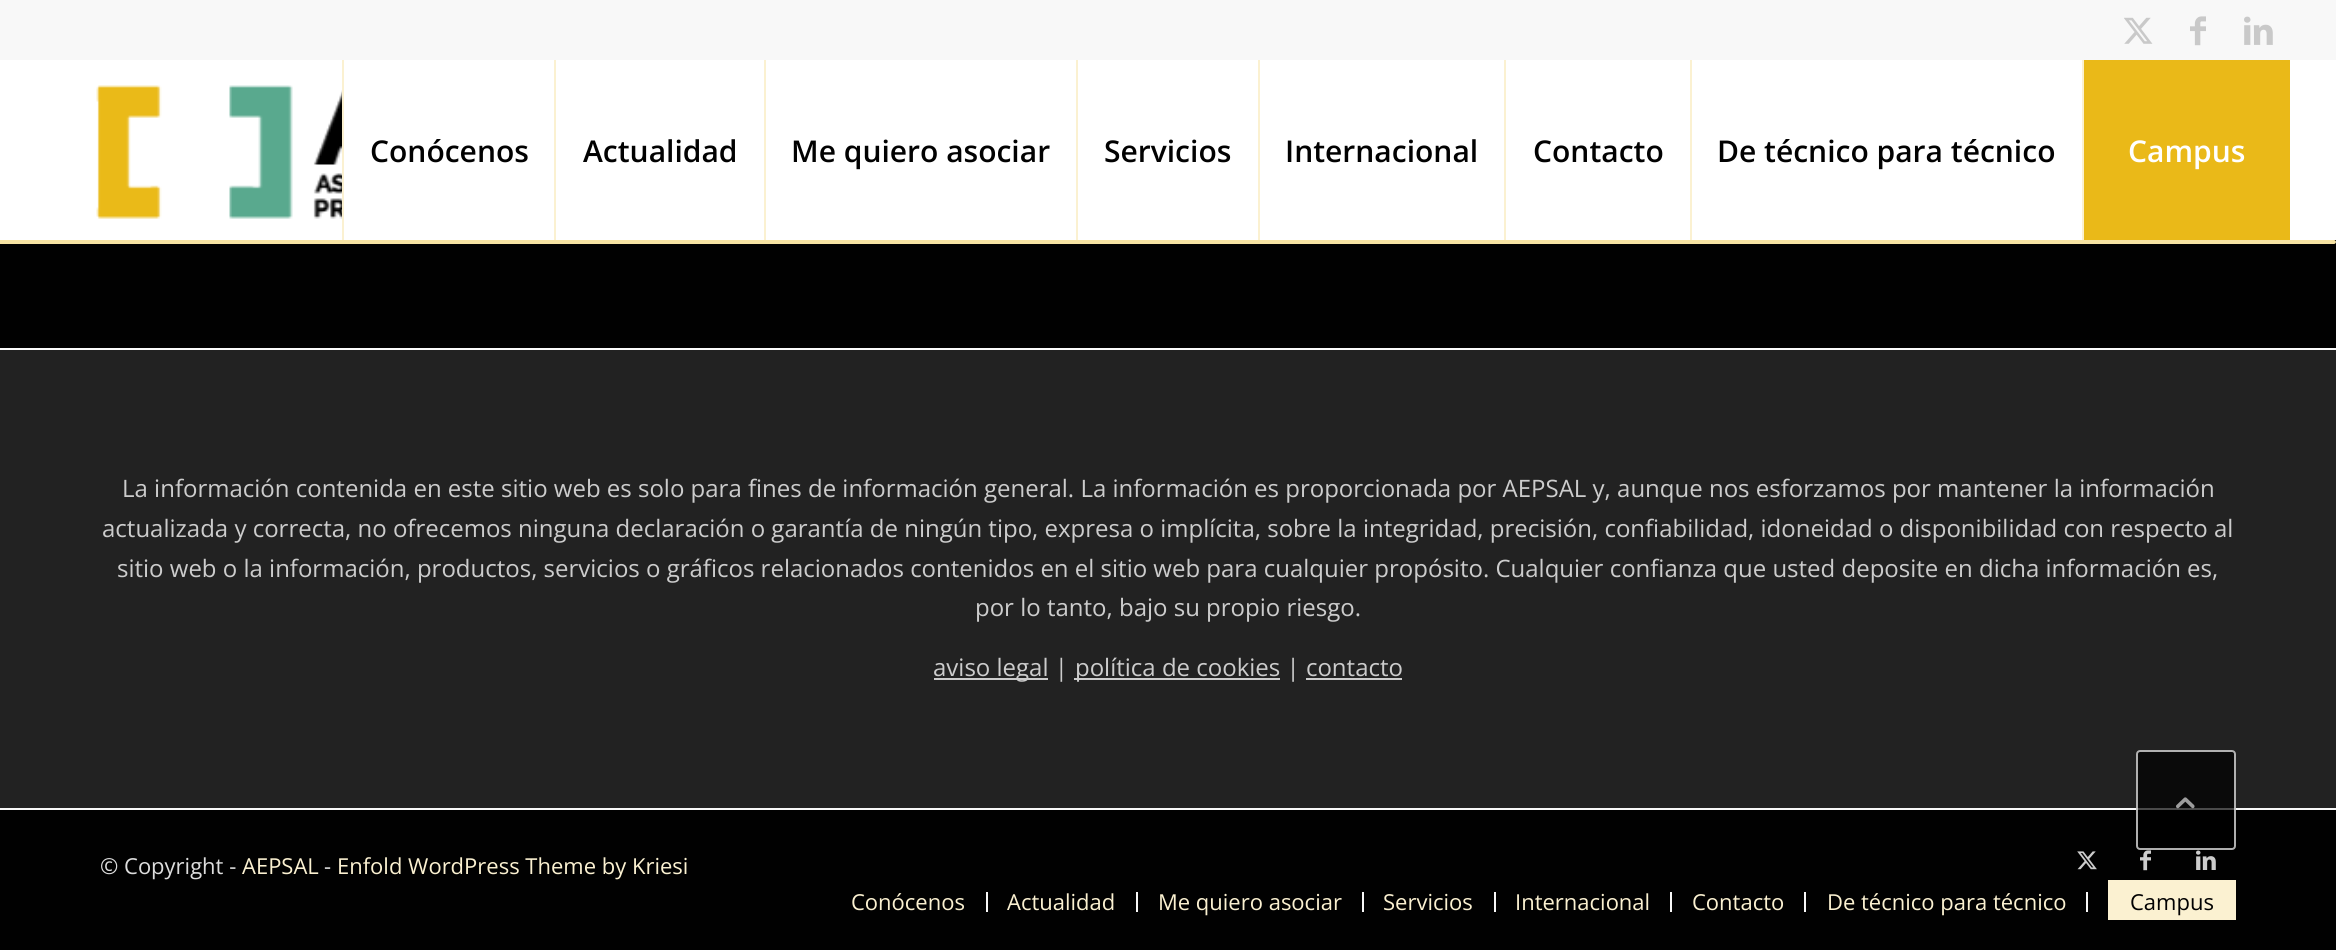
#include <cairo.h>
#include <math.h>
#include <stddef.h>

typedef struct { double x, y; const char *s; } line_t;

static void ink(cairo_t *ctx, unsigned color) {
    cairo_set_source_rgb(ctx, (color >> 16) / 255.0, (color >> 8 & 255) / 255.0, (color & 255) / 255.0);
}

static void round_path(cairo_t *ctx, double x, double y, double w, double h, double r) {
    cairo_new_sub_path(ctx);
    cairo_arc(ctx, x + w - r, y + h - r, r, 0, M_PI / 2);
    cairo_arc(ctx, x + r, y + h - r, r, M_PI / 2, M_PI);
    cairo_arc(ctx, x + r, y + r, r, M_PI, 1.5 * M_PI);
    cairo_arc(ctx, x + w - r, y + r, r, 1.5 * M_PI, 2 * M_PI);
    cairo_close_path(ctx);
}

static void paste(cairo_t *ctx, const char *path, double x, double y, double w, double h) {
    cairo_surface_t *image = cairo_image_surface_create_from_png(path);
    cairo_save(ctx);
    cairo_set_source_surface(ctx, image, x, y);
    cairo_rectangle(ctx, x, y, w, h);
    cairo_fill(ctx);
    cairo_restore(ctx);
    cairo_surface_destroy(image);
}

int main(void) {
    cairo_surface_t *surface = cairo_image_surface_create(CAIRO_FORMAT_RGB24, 2336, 950);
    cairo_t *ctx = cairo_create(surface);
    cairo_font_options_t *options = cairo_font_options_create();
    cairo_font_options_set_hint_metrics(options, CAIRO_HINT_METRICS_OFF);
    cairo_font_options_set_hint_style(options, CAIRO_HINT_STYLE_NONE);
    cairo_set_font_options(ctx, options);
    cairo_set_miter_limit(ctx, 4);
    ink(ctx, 0x010101);
    cairo_paint(ctx);
    ink(ctx, 0xF8F8F8);
    cairo_rectangle(ctx, 0, 0, 2336, 60);
    cairo_fill(ctx);
    paste(ctx, "media/1.png", 2124, 17, 29, 27);
    paste(ctx, "media/2.png", 2190, 16, 16, 30);
    paste(ctx, "media/3.png", 2244, 16, 29, 29);
    ink(ctx, 0xFFFFFF);
    cairo_rectangle(ctx, 0, 60, 2336, 180);
    cairo_fill(ctx);
    paste(ctx, "media/4.png", 96, 85, 246, 134);
    ink(ctx, 0xFBF1D1);
    cairo_rectangle(ctx, 342, 60, 2, 180);
    cairo_fill(ctx);
    cairo_select_font_face(ctx, "Open Sans SemiBold", CAIRO_FONT_SLANT_NORMAL, CAIRO_FONT_WEIGHT_NORMAL);
    cairo_set_font_size(ctx, 30);
    ink(ctx, 0x010101);
    cairo_move_to(ctx, 370, 162);
    cairo_show_text(ctx, "Conócenos");
    ink(ctx, 0xFBF1D1);
    cairo_rectangle(ctx, 554, 60, 2, 180);
    cairo_fill(ctx);
    ink(ctx, 0x010101);
    cairo_move_to(ctx, 583, 162);
    cairo_show_text(ctx, "Actualidad");
    ink(ctx, 0xFBF1D1);
    cairo_rectangle(ctx, 764, 60, 2, 180);
    cairo_fill(ctx);
    ink(ctx, 0x010101);
    cairo_move_to(ctx, 791, 162);
    cairo_show_text(ctx, "Me quiero asociar");
    ink(ctx, 0xFBF1D1);
    cairo_rectangle(ctx, 1076, 60, 2, 180);
    cairo_fill(ctx);
    ink(ctx, 0x010101);
    cairo_move_to(ctx, 1104, 162);
    cairo_show_text(ctx, "Servicios");
    ink(ctx, 0xFBF1D1);
    cairo_rectangle(ctx, 1258, 60, 2, 180);
    cairo_fill(ctx);
    ink(ctx, 0x010101);
    cairo_move_to(ctx, 1285, 162);
    cairo_show_text(ctx, "Internacional");
    ink(ctx, 0xFBF1D1);
    cairo_rectangle(ctx, 1504, 60, 2, 180);
    cairo_fill(ctx);
    ink(ctx, 0x010101);
    cairo_move_to(ctx, 1533, 162);
    cairo_show_text(ctx, "Contacto");
    ink(ctx, 0xFBF1D1);
    cairo_rectangle(ctx, 1690, 60, 2, 180);
    cairo_fill(ctx);
    ink(ctx, 0x010101);
    cairo_move_to(ctx, 1717, 162);
    cairo_show_text(ctx, "De técnico para técnico");
    ink(ctx, 0xEAB918);
    cairo_rectangle(ctx, 2084, 60, 206, 180);
    cairo_fill(ctx);
    ink(ctx, 0xFBF1D1);
    cairo_rectangle(ctx, 2082, 60, 2, 180);
    cairo_fill(ctx);
    ink(ctx, 0xFFFFFF);
    cairo_move_to(ctx, 2128, 162);
    cairo_show_text(ctx, "Campus");
    ink(ctx, 0xF7E3A3);
    cairo_new_path(ctx);
    cairo_move_to(ctx, 0, 240);
    cairo_line_to(ctx, 2334, 240);
    cairo_curve_to(ctx, 2335, 240, 2336, 241, 2336, 242);
    cairo_curve_to(ctx, 2336, 243, 2335, 244, 2334, 244);
    cairo_line_to(ctx, 0, 244);
    cairo_close_path(ctx);
    cairo_fill(ctx);
    ink(ctx, 0x222222);
    cairo_rectangle(ctx, 0, 350, 2336, 458);
    cairo_fill(ctx);
    ink(ctx, 0xFCFCFC);
    cairo_rectangle(ctx, 0, 348, 2336, 2);
    cairo_fill(ctx);
    cairo_select_font_face(ctx, "Open Sans", CAIRO_FONT_SLANT_NORMAL, CAIRO_FONT_WEIGHT_NORMAL);
    cairo_set_font_size(ctx, 24);
    ink(ctx, 0xCCCCCC);
    {
        static const line_t items[] = {
            {122, 497, "La información contenida en este sitio web es solo para fines de información general. La información es proporcionada por AEPSAL y, aunque nos esforzamos por mantener la información"},
            {102, 537, "actualizada y correcta, no ofrecemos ninguna declaración o garantía de ningún tipo, expresa o implícita, sobre la integridad, precisión, confiabilidad, idoneidad o disponibilidad con respecto al"},
            {117, 577, "sitio web o la información, productos, servicios o gráficos relacionados contenidos en el sitio web para cualquier propósito. Cualquier confianza que usted deposite en dicha información es,"},
            {975, 616, "por lo tanto, bajo su propio riesgo."},
        };
        for (size_t i = 0; i < sizeof items / sizeof *items; i++) {
            cairo_move_to(ctx, items[i].x, items[i].y);
            cairo_show_text(ctx, items[i].s);
        }
    }
    cairo_rectangle(ctx, 934, 678, 114, 2);
    cairo_fill(ctx);
    cairo_move_to(ctx, 933, 676);
    cairo_show_text(ctx, "aviso legal |");
    cairo_rectangle(ctx, 1074, 678, 206, 2);
    cairo_fill(ctx);
    cairo_move_to(ctx, 1075, 676);
    cairo_show_text(ctx, "política de cookies | contacto");
    cairo_rectangle(ctx, 1306, 678, 96, 2);
    cairo_fill(ctx);
    ink(ctx, 0xF8F8F8);
    cairo_rectangle(ctx, 0, 808, 2336, 2);
    cairo_fill(ctx);
    cairo_set_font_size(ctx, 22);
    ink(ctx, 0xDDDDDD);
    cairo_move_to(ctx, 100, 874);
    cairo_show_text(ctx, "© Copyright -");
    ink(ctx, 0xFBF1D1);
    cairo_move_to(ctx, 242, 874);
    cairo_show_text(ctx, "AEPSAL");
    ink(ctx, 0xDDDDDD);
    cairo_move_to(ctx, 324, 874);
    cairo_show_text(ctx, "-");
    ink(ctx, 0xFBF1D1);
    cairo_move_to(ctx, 337, 874);
    cairo_show_text(ctx, "Enfold WordPress Theme by Kriesi");
    paste(ctx, "media/5.png", 2077, 851, 20, 19);
    paste(ctx, "media/6.png", 2140, 850, 11, 21);
    paste(ctx, "media/7.png", 2196, 850, 20, 20);
    cairo_move_to(ctx, 851, 910);
    cairo_show_text(ctx, "Conócenos");
    ink(ctx, 0xF8F8F8);
    cairo_rectangle(ctx, 986, 892, 2, 20);
    cairo_fill(ctx);
    ink(ctx, 0xFBF1D1);
    cairo_move_to(ctx, 1007, 910);
    cairo_show_text(ctx, "Actualidad");
    ink(ctx, 0xF8F8F8);
    cairo_rectangle(ctx, 1136, 892, 2, 20);
    cairo_fill(ctx);
    ink(ctx, 0xFBF1D1);
    cairo_move_to(ctx, 1158, 910);
    cairo_show_text(ctx, "Me quiero asociar");
    ink(ctx, 0xF8F8F8);
    cairo_rectangle(ctx, 1362, 892, 2, 20);
    cairo_fill(ctx);
    ink(ctx, 0xFBF1D1);
    cairo_move_to(ctx, 1383, 910);
    cairo_show_text(ctx, "Servicios");
    ink(ctx, 0xF8F8F8);
    cairo_rectangle(ctx, 1494, 892, 2, 20);
    cairo_fill(ctx);
    ink(ctx, 0xFBF1D1);
    cairo_move_to(ctx, 1515, 910);
    cairo_show_text(ctx, "Internacional");
    ink(ctx, 0xF8F8F8);
    cairo_rectangle(ctx, 1670, 892, 2, 20);
    cairo_fill(ctx);
    ink(ctx, 0xFBF1D1);
    cairo_move_to(ctx, 1692, 910);
    cairo_show_text(ctx, "Contacto");
    ink(ctx, 0xF8F8F8);
    cairo_rectangle(ctx, 1804, 892, 2, 20);
    cairo_fill(ctx);
    ink(ctx, 0xFBF1D1);
    cairo_move_to(ctx, 1827, 910);
    cairo_show_text(ctx, "De técnico para técnico");
    ink(ctx, 0xF8F8F8);
    cairo_rectangle(ctx, 2086, 892, 2, 20);
    cairo_fill(ctx);
    ink(ctx, 0xFBF1D1);
    cairo_rectangle(ctx, 2108, 880, 128, 40);
    cairo_fill(ctx);
    ink(ctx, 0x010101);
    cairo_move_to(ctx, 2130, 910);
    cairo_show_text(ctx, "Campus");
    cairo_set_source_rgba(ctx, 0.004, 0.004, 0.004, 0.7);
    round_path(ctx, 2136, 750, 100, 100, 4);
    cairo_fill(ctx);
    round_path(ctx, 2137, 751, 98, 98, 3);
    cairo_set_source_rgba(ctx, 0.973, 0.973, 0.973, 0.7);
    cairo_stroke(ctx);
    paste(ctx, "media/8.png", 2176, 797, 19, 12);
    cairo_surface_write_to_png(surface, "image.png");
    cairo_font_options_destroy(options);
    cairo_destroy(ctx);
    cairo_surface_destroy(surface);
    return 0;
}
